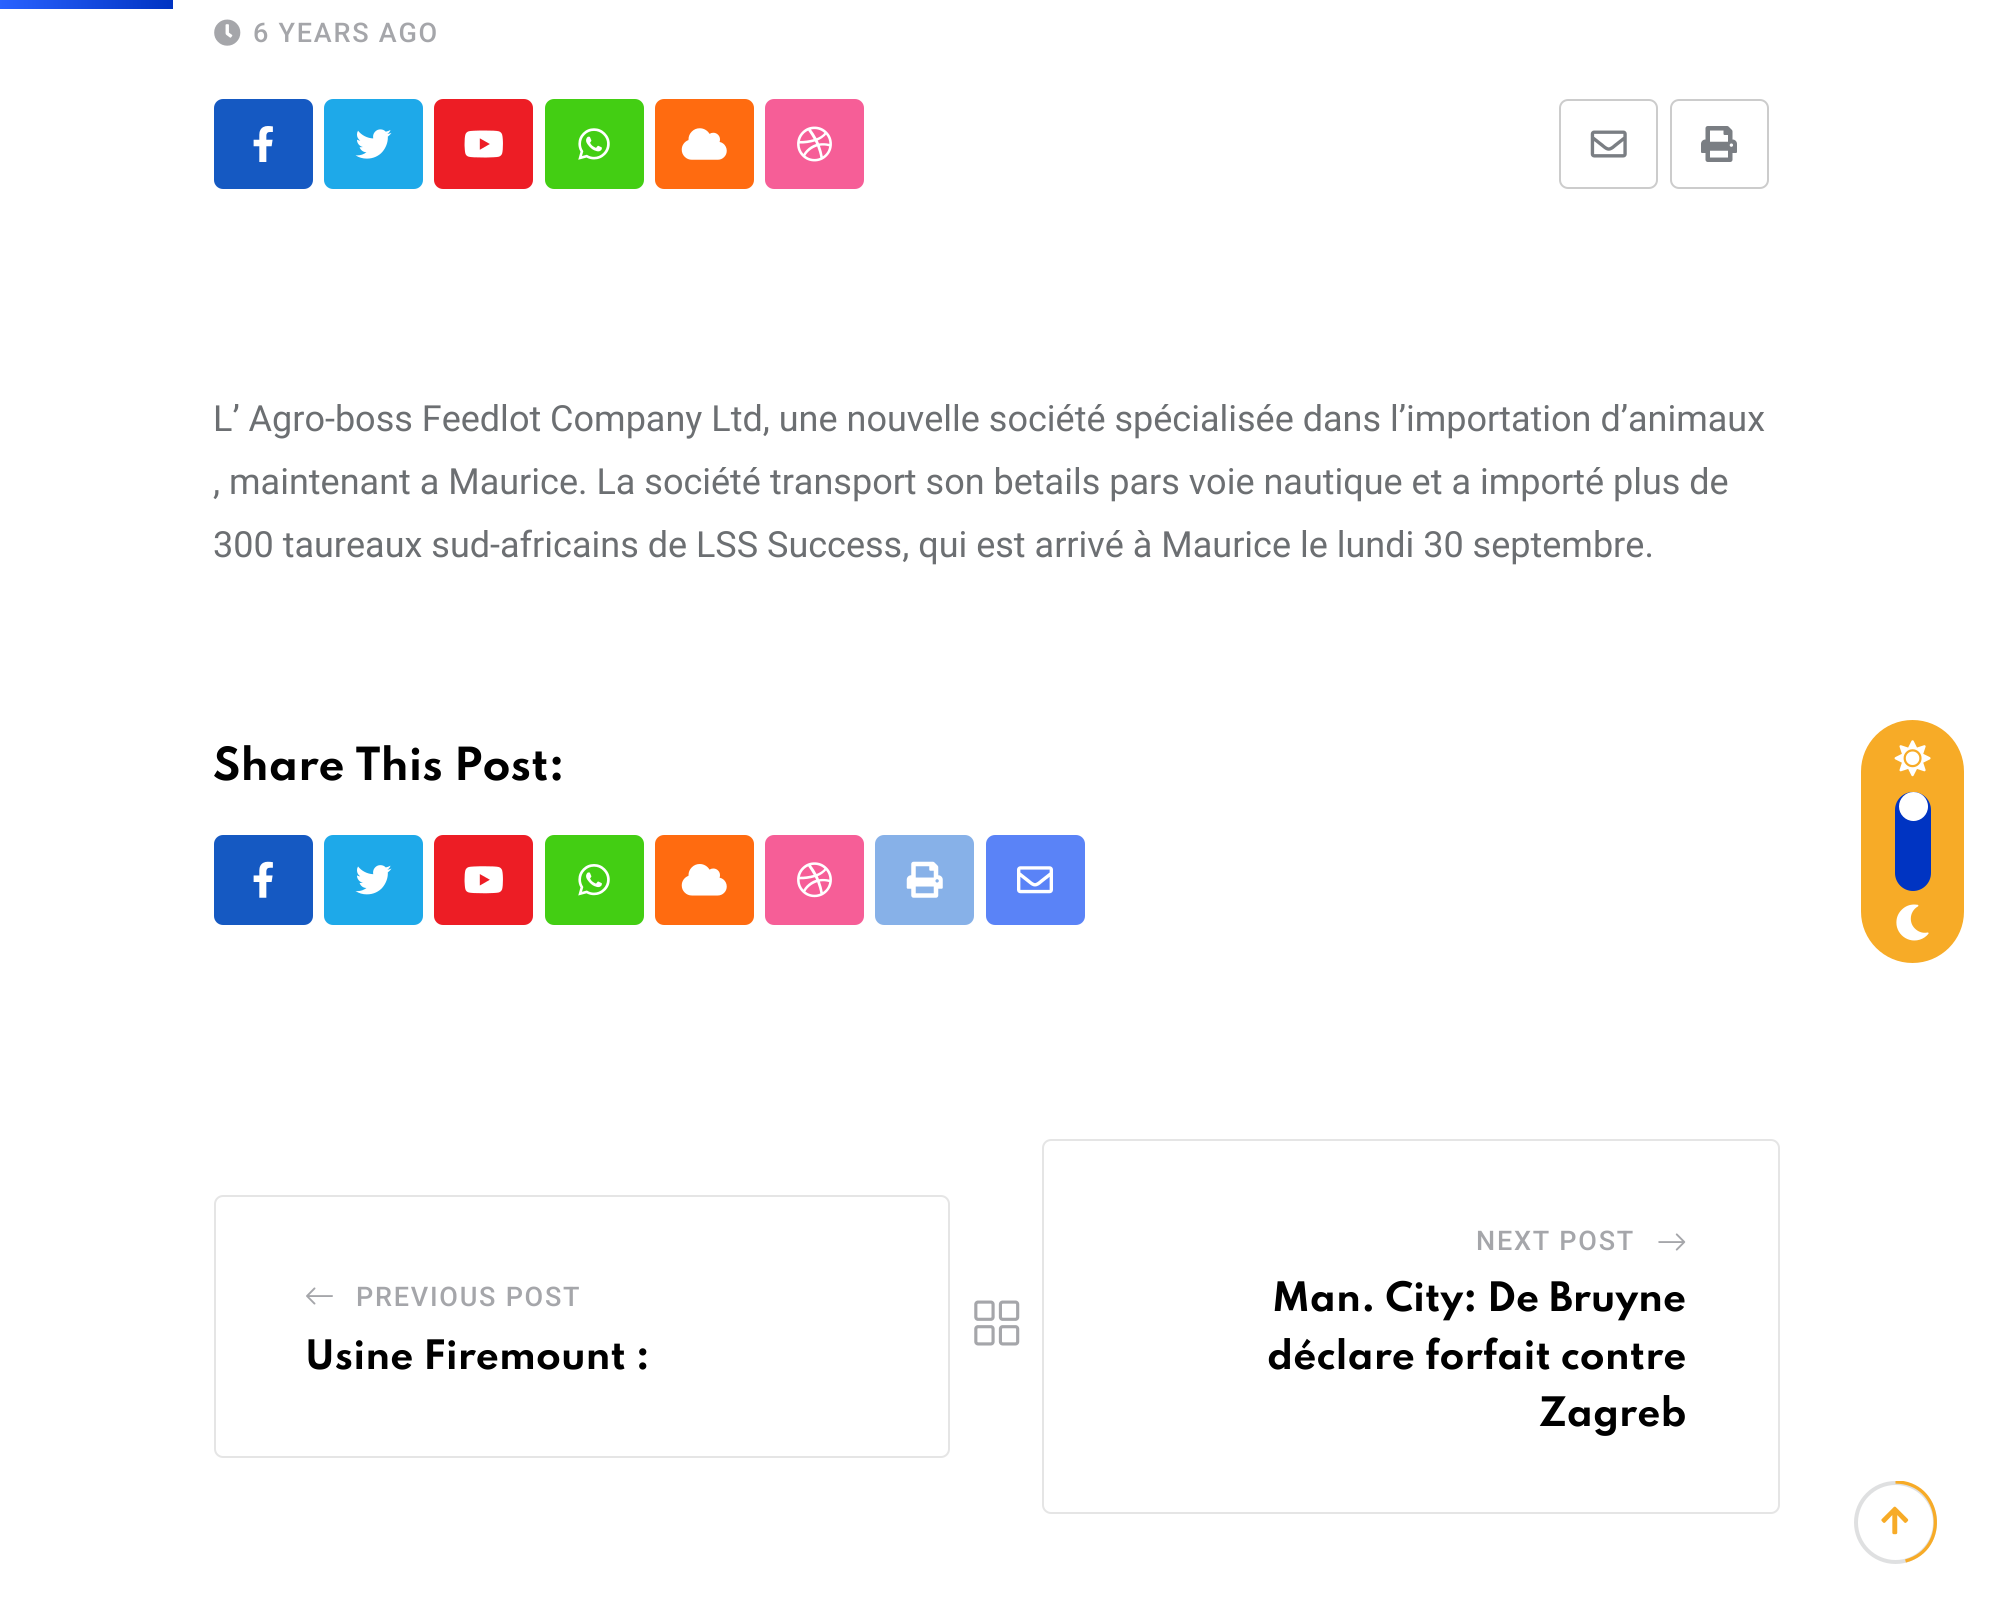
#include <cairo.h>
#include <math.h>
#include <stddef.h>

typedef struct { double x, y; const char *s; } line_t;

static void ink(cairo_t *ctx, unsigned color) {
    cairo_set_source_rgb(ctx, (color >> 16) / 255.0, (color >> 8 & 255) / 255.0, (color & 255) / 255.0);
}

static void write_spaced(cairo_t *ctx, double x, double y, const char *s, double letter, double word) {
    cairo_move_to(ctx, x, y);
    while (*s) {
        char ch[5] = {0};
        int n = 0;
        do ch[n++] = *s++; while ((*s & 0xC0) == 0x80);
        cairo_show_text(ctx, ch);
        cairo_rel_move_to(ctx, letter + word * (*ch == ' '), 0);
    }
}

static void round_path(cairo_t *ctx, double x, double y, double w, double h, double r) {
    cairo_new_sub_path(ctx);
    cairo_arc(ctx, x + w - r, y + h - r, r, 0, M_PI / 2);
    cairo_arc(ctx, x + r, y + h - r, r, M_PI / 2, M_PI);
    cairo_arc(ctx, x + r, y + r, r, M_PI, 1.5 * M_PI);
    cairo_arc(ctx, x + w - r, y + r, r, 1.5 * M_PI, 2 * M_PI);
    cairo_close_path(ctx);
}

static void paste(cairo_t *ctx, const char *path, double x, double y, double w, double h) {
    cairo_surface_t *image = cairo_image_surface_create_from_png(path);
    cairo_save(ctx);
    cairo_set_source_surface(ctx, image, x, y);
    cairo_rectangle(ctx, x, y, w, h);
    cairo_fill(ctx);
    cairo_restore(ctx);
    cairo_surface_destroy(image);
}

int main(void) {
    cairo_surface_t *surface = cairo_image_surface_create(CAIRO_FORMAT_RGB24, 1991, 1616);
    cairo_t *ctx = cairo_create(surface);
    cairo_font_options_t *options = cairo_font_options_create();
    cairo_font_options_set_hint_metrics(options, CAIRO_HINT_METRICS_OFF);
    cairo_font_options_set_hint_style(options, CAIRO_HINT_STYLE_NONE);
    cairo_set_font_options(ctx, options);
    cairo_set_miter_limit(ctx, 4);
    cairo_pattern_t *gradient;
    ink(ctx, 0xFFFFFF);
    cairo_paint(ctx);
    gradient = cairo_pattern_create_linear(0, 4.5, 173, 4.5);
    cairo_pattern_add_color_stop_rgba(gradient, 0, 0.161, 0.384, 1, 1);
    cairo_pattern_add_color_stop_rgba(gradient, 1, 0, 0.204, 0.761, 1);
    cairo_set_source(ctx, gradient);
    cairo_pattern_destroy(gradient);
    cairo_rectangle(ctx, 0, 0, 173, 9);
    cairo_fill(ctx);
    paste(ctx, "media/1.png", 214, 19, 27, 27);
    cairo_select_font_face(ctx, "Roboto Medium", CAIRO_FONT_SLANT_NORMAL, CAIRO_FONT_WEIGHT_NORMAL);
    cairo_set_font_size(ctx, 27);
    ink(ctx, 0xA5A6AA);
    write_spaced(ctx, 253, 42, "6 YEARS AGO", 1.75, 0);
    ink(ctx, 0x1559C2);
    round_path(ctx, 214, 99, 99, 90, 9);
    cairo_fill(ctx);
    paste(ctx, "media/2.png", 253, 126, 20, 36);
    ink(ctx, 0x1EA9E9);
    round_path(ctx, 324, 99, 99, 90, 9);
    cairo_fill(ctx);
    paste(ctx, "media/3.png", 355, 129, 37, 30);
    ink(ctx, 0xED1D25);
    round_path(ctx, 434, 99, 99, 90, 9);
    cairo_fill(ctx);
    paste(ctx, "media/4.png", 464, 130, 39, 28);
    ink(ctx, 0x43CE13);
    round_path(ctx, 545, 99, 99, 90, 9);
    cairo_fill(ctx);
    paste(ctx, "media/5.png", 578, 128, 32, 32);
    ink(ctx, 0xFF6B10);
    round_path(ctx, 655, 99, 99, 90, 9);
    cairo_fill(ctx);
    paste(ctx, "media/6.png", 681, 128, 46, 32);
    ink(ctx, 0xF65E97);
    round_path(ctx, 765, 99, 99, 90, 9);
    cairo_fill(ctx);
    paste(ctx, "media/7.png", 797, 126, 35, 36);
    round_path(ctx, 1560, 100, 97, 88, 8);
    ink(ctx, 0xCCCCCC);
    cairo_stroke(ctx);
    paste(ctx, "media/8.png", 1590, 130, 37, 28);
    round_path(ctx, 1671, 100, 97, 88, 8);
    cairo_stroke(ctx);
    paste(ctx, "media/9.png", 1701, 126, 36, 36);
    cairo_select_font_face(ctx, "Roboto", CAIRO_FONT_SLANT_NORMAL, CAIRO_FONT_WEIGHT_NORMAL);
    cairo_set_font_size(ctx, 36);
    ink(ctx, 0x6C6F72);
    {
        static const line_t items[] = {
            {213, 431, "L’ Agro-boss Feedlot Company Ltd, une nouvelle société spécialisée dans l’importation d’animaux"},
            {213, 494, ", maintenant a Maurice. La société transport son betails pars voie nautique et a importé plus de"},
            {213, 557, "300 taureaux sud-africains de LSS Success, qui est arrivé à Maurice le lundi 30 septembre."},
        };
        for (size_t i = 0; i < sizeof items / sizeof *items; i++) {
            cairo_move_to(ctx, items[i].x, items[i].y);
            cairo_show_text(ctx, items[i].s);
        }
    }
    cairo_select_font_face(ctx, "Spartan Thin", CAIRO_FONT_SLANT_NORMAL, CAIRO_FONT_WEIGHT_BOLD);
    cairo_set_font_size(ctx, 40.5);
    ink(ctx, 0x000000);
    cairo_move_to(ctx, 213, 780);
    cairo_show_text(ctx, "Share This Post:");
    ink(ctx, 0x1559C2);
    round_path(ctx, 214, 835, 99, 90, 9);
    cairo_fill(ctx);
    paste(ctx, "media/10.png", 253, 861, 20, 37);
    ink(ctx, 0x1EA9E9);
    round_path(ctx, 324, 835, 99, 90, 9);
    cairo_fill(ctx);
    paste(ctx, "media/11.png", 355, 865, 37, 30);
    ink(ctx, 0xED1D25);
    round_path(ctx, 434, 835, 99, 90, 9);
    cairo_fill(ctx);
    paste(ctx, "media/12.png", 464, 866, 39, 28);
    ink(ctx, 0x43CE13);
    round_path(ctx, 545, 835, 99, 90, 9);
    cairo_fill(ctx);
    paste(ctx, "media/13.png", 578, 864, 32, 32);
    ink(ctx, 0xFF6B10);
    round_path(ctx, 655, 835, 99, 90, 9);
    cairo_fill(ctx);
    paste(ctx, "media/14.png", 681, 864, 46, 32);
    ink(ctx, 0xF65E97);
    round_path(ctx, 765, 835, 99, 90, 9);
    cairo_fill(ctx);
    paste(ctx, "media/15.png", 797, 862, 35, 36);
    ink(ctx, 0x87B1E8);
    round_path(ctx, 875, 835, 99, 90, 9);
    cairo_fill(ctx);
    paste(ctx, "media/16.png", 906, 861, 37, 37);
    ink(ctx, 0x5A83F7);
    round_path(ctx, 986, 835, 99, 90, 9);
    cairo_fill(ctx);
    paste(ctx, "media/17.png", 1017, 866, 36, 28);
    round_path(ctx, 215, 1196, 734, 261, 8);
    ink(ctx, 0xE5E5E5);
    cairo_stroke(ctx);
    paste(ctx, "media/18.png", 306, 1287, 27, 18);
    cairo_select_font_face(ctx, "Roboto Medium", CAIRO_FONT_SLANT_NORMAL, CAIRO_FONT_WEIGHT_NORMAL);
    cairo_set_font_size(ctx, 27);
    ink(ctx, 0xA5A6AA);
    write_spaced(ctx, 356, 1306, "PREVIOUS POST", 1.75, 0);
    cairo_select_font_face(ctx, "Spartan Thin", CAIRO_FONT_SLANT_NORMAL, CAIRO_FONT_WEIGHT_BOLD);
    cairo_set_font_size(ctx, 36);
    ink(ctx, 0x000000);
    cairo_move_to(ctx, 305, 1369);
    cairo_show_text(ctx, "Usine Firemount :");
    paste(ctx, "media/19.png", 974, 1300, 46, 46);
    round_path(ctx, 1043, 1140, 736, 373, 8);
    ink(ctx, 0xE5E5E5);
    cairo_stroke(ctx);
    cairo_select_font_face(ctx, "Roboto Medium", CAIRO_FONT_SLANT_NORMAL, CAIRO_FONT_WEIGHT_NORMAL);
    cairo_set_font_size(ctx, 27);
    ink(ctx, 0xA5A6AA);
    write_spaced(ctx, 1476, 1250, "NEXT POST", 1.75, 0);
    paste(ctx, "media/20.png", 1658, 1233, 28, 18);
    cairo_select_font_face(ctx, "Spartan Thin", CAIRO_FONT_SLANT_NORMAL, CAIRO_FONT_WEIGHT_BOLD);
    cairo_set_font_size(ctx, 36);
    ink(ctx, 0x000000);
    {
        static const line_t items[] = {
            {1272, 1311, "Man. City: De Bruyne"},
            {1267, 1369, "déclare forfait contre"},
            {1539, 1426, "Zagreb"},
        };
        for (size_t i = 0; i < sizeof items / sizeof *items; i++) {
            cairo_move_to(ctx, items[i].x, items[i].y);
            cairo_show_text(ctx, items[i].s);
        }
    }
    cairo_new_path(ctx);
    cairo_arc(ctx, 1895.5, 1522.5, 39.5, 0, 2 * M_PI);
    ink(ctx, 0xDFE0E1);
    cairo_set_line_width(ctx, 4);
    cairo_stroke(ctx);
    cairo_save(ctx);
    cairo_rectangle(ctx, 1854, 1481, 83, 83);
    cairo_clip(ctx);
    cairo_new_path(ctx);
    cairo_move_to(ctx, 1895.5, 1482);
    cairo_curve_to(ctx, 1942.5, 1482, 1950.5, 1549, 1905.5, 1561);
    ink(ctx, 0xF7AB27);
    cairo_set_line_width(ctx, 3.3);
    cairo_stroke(ctx);
    cairo_restore(ctx);
    paste(ctx, "media/21.png", 1881, 1506, 28, 29);
    ink(ctx, 0xF7AB27);
    round_path(ctx, 1861, 720, 103, 243, 51.5);
    cairo_fill(ctx);
    paste(ctx, "media/22.png", 1894, 740, 37, 37);
    ink(ctx, 0x0034C2);
    round_path(ctx, 1895, 792, 36, 99, 18);
    cairo_fill(ctx);
    ink(ctx, 0xFFFFFF);
    cairo_arc(ctx, 1913.5, 806.5, 14.5, 0, 2 * M_PI);
    cairo_fill(ctx);
    paste(ctx, "media/23.png", 1896, 904, 33, 37);
    cairo_surface_write_to_png(surface, "image.png");
    cairo_font_options_destroy(options);
    cairo_destroy(ctx);
    cairo_surface_destroy(surface);
    return 0;
}
